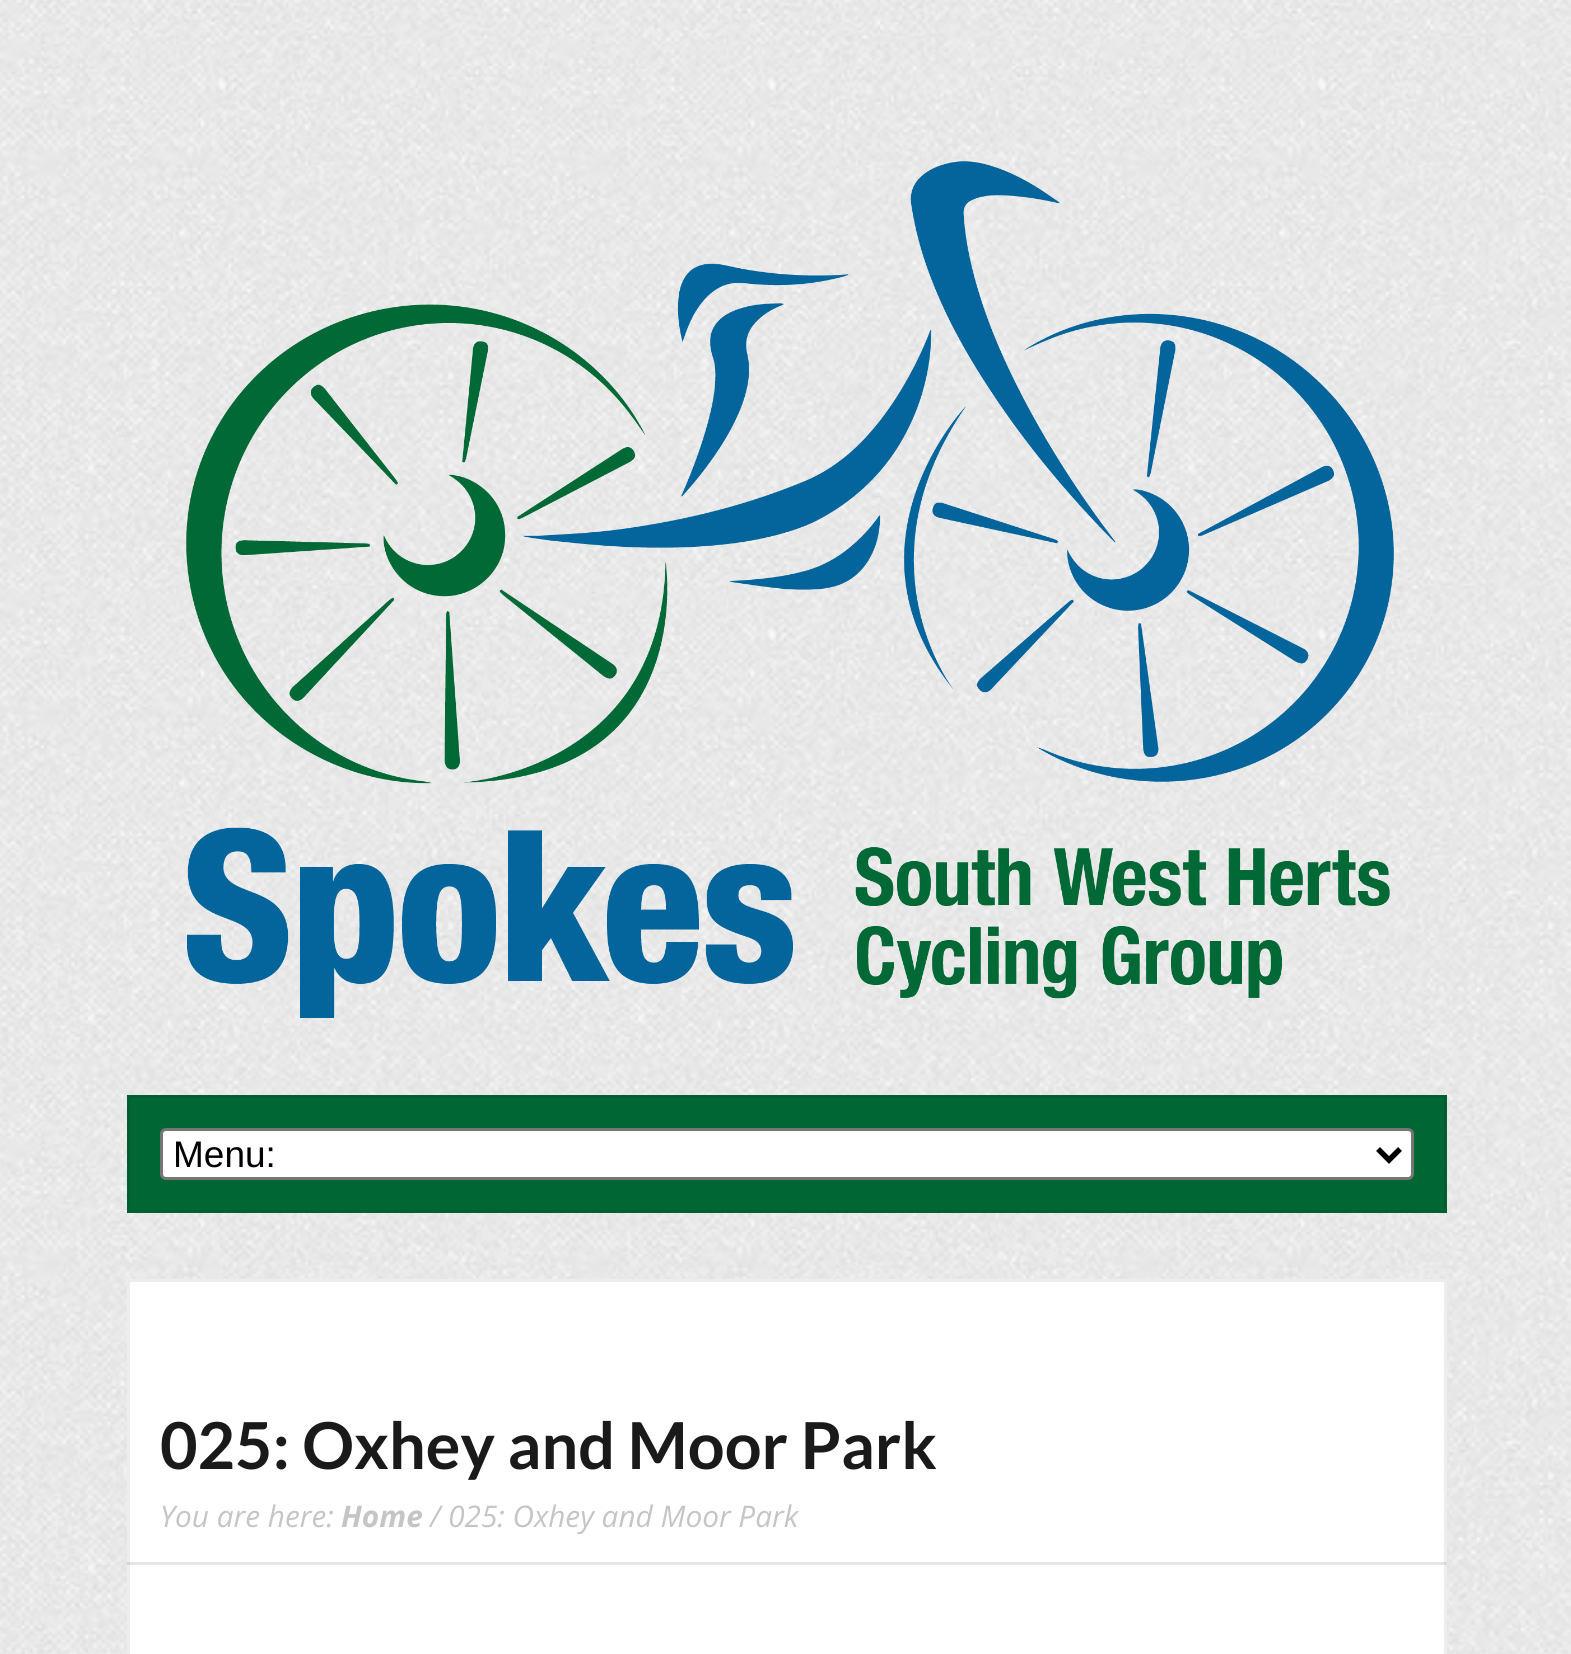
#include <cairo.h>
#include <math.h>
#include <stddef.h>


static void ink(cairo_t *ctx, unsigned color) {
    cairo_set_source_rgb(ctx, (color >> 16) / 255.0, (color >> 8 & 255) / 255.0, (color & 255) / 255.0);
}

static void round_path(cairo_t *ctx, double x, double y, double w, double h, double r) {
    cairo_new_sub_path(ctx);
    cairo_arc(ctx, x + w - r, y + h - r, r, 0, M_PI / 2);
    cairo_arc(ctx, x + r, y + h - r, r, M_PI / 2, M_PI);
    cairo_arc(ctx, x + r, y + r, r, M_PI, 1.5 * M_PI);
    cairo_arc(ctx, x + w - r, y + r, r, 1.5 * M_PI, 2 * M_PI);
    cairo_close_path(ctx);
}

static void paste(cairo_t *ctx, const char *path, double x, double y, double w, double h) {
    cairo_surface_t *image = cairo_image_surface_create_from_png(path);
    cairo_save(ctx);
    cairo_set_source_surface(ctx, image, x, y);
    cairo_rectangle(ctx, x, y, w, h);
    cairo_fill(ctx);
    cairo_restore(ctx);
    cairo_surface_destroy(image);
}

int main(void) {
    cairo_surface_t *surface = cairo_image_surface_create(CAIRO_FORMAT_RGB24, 1571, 1654);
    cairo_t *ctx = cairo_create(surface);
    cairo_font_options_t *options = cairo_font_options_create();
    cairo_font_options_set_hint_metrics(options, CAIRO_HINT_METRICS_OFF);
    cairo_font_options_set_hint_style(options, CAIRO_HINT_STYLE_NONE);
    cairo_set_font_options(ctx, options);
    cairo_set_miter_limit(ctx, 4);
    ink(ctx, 0xFFFFFF);
    cairo_paint(ctx);
    paste(ctx, "media/1.png", 0, 0, 1571, 1654);
    paste(ctx, "media/2.png", 186, 161, 1208, 857);
    ink(ctx, 0x006633);
    cairo_rectangle(ctx, 128.5, 1096.5, 1317, 115);
    cairo_fill_preserve(ctx);
    ink(ctx, 0x005F2F);
    cairo_set_line_width(ctx, 3);
    cairo_stroke(ctx);
    ink(ctx, 0xFFFFFF);
    round_path(ctx, 161.5, 1129.5, 1251, 49, 4.5);
    cairo_fill_preserve(ctx);
    ink(ctx, 0x767676);
    cairo_stroke(ctx);
    cairo_new_path(ctx);
    cairo_move_to(ctx, 1378, 1149);
    cairo_line_to(ctx, 1389, 1160);
    cairo_line_to(ctx, 1400, 1149);
    ink(ctx, 0x000000);
    cairo_set_line_width(ctx, 5.5);
    cairo_stroke(ctx);
    cairo_select_font_face(ctx, "Liberation Sans", CAIRO_FONT_SLANT_NORMAL, CAIRO_FONT_WEIGHT_NORMAL);
    cairo_set_font_size(ctx, 37);
    cairo_move_to(ctx, 173, 1167);
    cairo_show_text(ctx, "Menu:");
    ink(ctx, 0xFFFFFF);
    cairo_rectangle(ctx, 128.5, 1280.5, 1317, 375);
    cairo_fill_preserve(ctx);
    ink(ctx, 0xEDEDED);
    cairo_set_line_width(ctx, 3);
    cairo_stroke(ctx);
    cairo_select_font_face(ctx, "Lato", CAIRO_FONT_SLANT_NORMAL, CAIRO_FONT_WEIGHT_BOLD);
    cairo_set_font_size(ctx, 64.75);
    ink(ctx, 0x1A1A1A);
    cairo_move_to(ctx, 160, 1469);
    cairo_show_text(ctx, "025: Oxhey and Moor Park");
    cairo_select_font_face(ctx, "Open Sans", CAIRO_FONT_SLANT_ITALIC, CAIRO_FONT_WEIGHT_NORMAL);
    cairo_set_font_size(ctx, 29.75);
    ink(ctx, 0xC5C5C5);
    cairo_move_to(ctx, 160, 1527);
    cairo_show_text(ctx, "You are here:");
    cairo_select_font_face(ctx, "Open Sans", CAIRO_FONT_SLANT_ITALIC, CAIRO_FONT_WEIGHT_BOLD);
    cairo_move_to(ctx, 341, 1527);
    cairo_show_text(ctx, "Home");
    cairo_select_font_face(ctx, "Open Sans", CAIRO_FONT_SLANT_ITALIC, CAIRO_FONT_WEIGHT_NORMAL);
    cairo_move_to(ctx, 430, 1527);
    cairo_show_text(ctx, "/ 025: Oxhey and Moor Park");
    cairo_set_source_rgba(ctx, 0, 0, 0, 0.1);
    cairo_rectangle(ctx, 127, 1562, 1320, 3);
    cairo_fill(ctx);
    cairo_surface_write_to_png(surface, "image.png");
    cairo_font_options_destroy(options);
    cairo_destroy(ctx);
    cairo_surface_destroy(surface);
    return 0;
}
